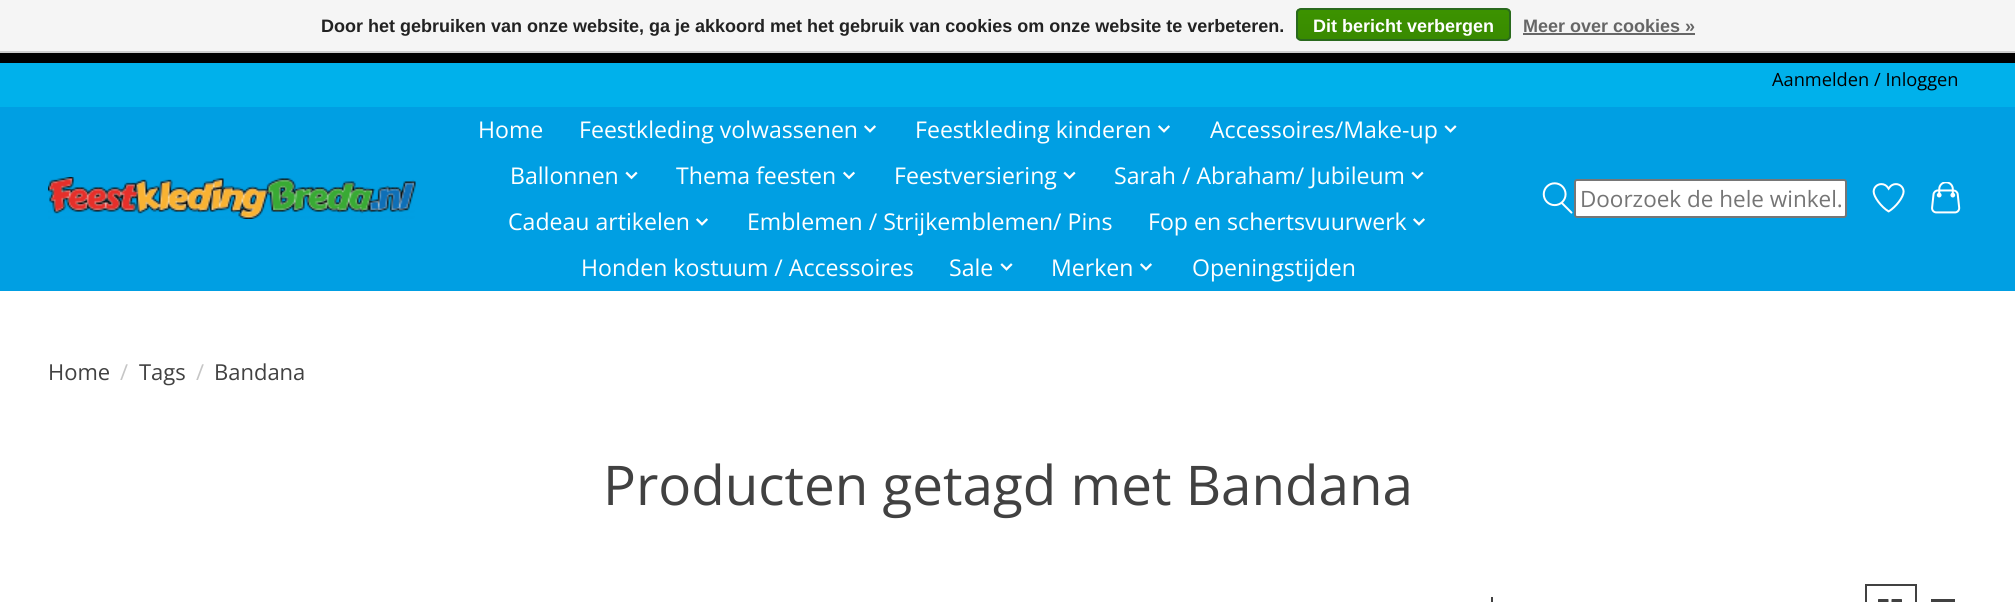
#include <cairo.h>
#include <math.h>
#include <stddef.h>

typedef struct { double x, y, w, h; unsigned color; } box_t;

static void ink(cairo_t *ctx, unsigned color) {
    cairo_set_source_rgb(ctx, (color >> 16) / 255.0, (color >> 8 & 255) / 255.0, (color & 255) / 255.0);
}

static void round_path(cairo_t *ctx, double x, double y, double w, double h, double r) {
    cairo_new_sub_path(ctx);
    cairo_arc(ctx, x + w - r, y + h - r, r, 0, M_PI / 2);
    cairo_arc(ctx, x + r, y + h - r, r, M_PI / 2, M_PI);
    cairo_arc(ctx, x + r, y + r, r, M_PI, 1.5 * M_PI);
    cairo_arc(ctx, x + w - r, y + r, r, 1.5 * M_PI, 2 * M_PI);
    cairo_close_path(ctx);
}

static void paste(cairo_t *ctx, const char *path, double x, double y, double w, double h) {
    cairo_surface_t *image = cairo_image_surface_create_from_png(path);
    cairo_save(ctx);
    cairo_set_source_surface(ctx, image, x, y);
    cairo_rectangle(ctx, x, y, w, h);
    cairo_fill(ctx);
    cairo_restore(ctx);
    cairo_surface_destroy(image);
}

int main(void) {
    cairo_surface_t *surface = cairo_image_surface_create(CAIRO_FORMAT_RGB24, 2015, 602);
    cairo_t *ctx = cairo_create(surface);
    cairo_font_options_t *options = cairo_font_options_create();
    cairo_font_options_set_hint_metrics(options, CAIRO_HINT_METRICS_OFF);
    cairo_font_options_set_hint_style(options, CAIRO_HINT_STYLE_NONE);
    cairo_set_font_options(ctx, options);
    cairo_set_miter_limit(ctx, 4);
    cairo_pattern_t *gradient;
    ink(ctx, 0xFFFFFF);
    cairo_paint(ctx);
    ink(ctx, 0xF5F5F5);
    cairo_rectangle(ctx, 0, 0, 2015, 51);
    cairo_fill(ctx);
    ink(ctx, 0xCCCCCC);
    cairo_rectangle(ctx, 0, 51, 2015, 2);
    cairo_fill(ctx);
    cairo_select_font_face(ctx, "Liberation Sans", CAIRO_FONT_SLANT_NORMAL, CAIRO_FONT_WEIGHT_BOLD);
    cairo_set_font_size(ctx, 18);
    ink(ctx, 0x222222);
    cairo_move_to(ctx, 321, 32);
    cairo_show_text(ctx, "Door het gebruiken van onze website, ga je akkoord met het gebruik van cookies om onze website te verbeteren.");
    cairo_save(ctx);
    round_path(ctx, 1296, 8, 215, 33, 5);
    cairo_clip(ctx);
    gradient = cairo_pattern_create_linear(1403, 9, 1403, 39);
    cairo_pattern_add_color_stop_rgba(gradient, 0, 0.235, 0.576, 0, 1);
    cairo_pattern_add_color_stop_rgba(gradient, 1, 0.224, 0.541, 0, 1);
    cairo_set_source(ctx, gradient);
    cairo_pattern_destroy(gradient);
    cairo_rectangle(ctx, 1296, 9, 215, 30);
    cairo_fill(ctx);
    cairo_restore(ctx);
    round_path(ctx, 1297, 9, 213, 31, 4);
    ink(ctx, 0x29691D);
    cairo_stroke(ctx);
    ink(ctx, 0xFFFFFF);
    cairo_move_to(ctx, 1313, 32);
    cairo_show_text(ctx, "Dit bericht verbergen");
    ink(ctx, 0x666666);
    cairo_move_to(ctx, 1523, 32);
    cairo_show_text(ctx, "Meer over cookies »");
    {
        static const box_t items[] = {
            {1523, 33, 172, 2, 0x666666},
            {0, 53, 2015, 10, 0x000000},
            {0, 107, 2015, 184, 0x009FE3},
            {0, 63, 2015, 44, 0x00B1EB},
        };
        for (size_t i = 0; i < sizeof items / sizeof *items; i++) {
            ink(ctx, items[i].color);
            cairo_rectangle(ctx, items[i].x, items[i].y, items[i].w, items[i].h);
            cairo_fill(ctx);
        }
    }
    cairo_select_font_face(ctx, "Open Sans", CAIRO_FONT_SLANT_NORMAL, CAIRO_FONT_WEIGHT_NORMAL);
    cairo_set_font_size(ctx, 18.25);
    ink(ctx, 0x000000);
    cairo_move_to(ctx, 1772, 86);
    cairo_show_text(ctx, "Aanmelden / Inloggen");
    paste(ctx, "media/1.png", 48, 177, 368, 42);
    cairo_set_font_size(ctx, 23.1);
    ink(ctx, 0xFFFFFF);
    cairo_move_to(ctx, 478, 138);
    cairo_show_text(ctx, "Home");
    cairo_move_to(ctx, 579, 138);
    cairo_show_text(ctx, "Feestkleding volwassenen");
    paste(ctx, "media/2.png", 864, 125, 12, 8);
    cairo_move_to(ctx, 915, 138);
    cairo_show_text(ctx, "Feestkleding kinderen");
    paste(ctx, "media/2.png", 1158, 125, 12, 8);
    cairo_move_to(ctx, 1210, 138);
    cairo_show_text(ctx, "Accessoires/Make-up");
    paste(ctx, "media/3.png", 1444, 125, 13, 8);
    cairo_move_to(ctx, 510, 184);
    cairo_show_text(ctx, "Ballonnen");
    paste(ctx, "media/4.png", 625, 171, 13, 9);
    cairo_move_to(ctx, 676, 184);
    cairo_show_text(ctx, "Thema feesten");
    paste(ctx, "media/5.png", 843, 171, 12, 9);
    cairo_move_to(ctx, 894, 184);
    cairo_show_text(ctx, "Feestversiering");
    paste(ctx, "media/4.png", 1063, 171, 13, 9);
    cairo_move_to(ctx, 1114, 184);
    cairo_show_text(ctx, "Sarah / Abraham/ Jubileum");
    paste(ctx, "media/4.png", 1411, 171, 13, 9);
    cairo_move_to(ctx, 508, 230);
    cairo_show_text(ctx, "Cadeau artikelen");
    paste(ctx, "media/2.png", 696, 218, 12, 8);
    cairo_move_to(ctx, 747, 230);
    cairo_show_text(ctx, "Emblemen / Strijkemblemen/ Pins");
    cairo_move_to(ctx, 1148, 230);
    cairo_show_text(ctx, "Fop en schertsvuurwerk");
    paste(ctx, "media/2.png", 1413, 218, 12, 8);
    cairo_move_to(ctx, 581, 276);
    cairo_show_text(ctx, "Honden kostuum / Accessoires");
    cairo_move_to(ctx, 949, 276);
    cairo_show_text(ctx, "Sale");
    paste(ctx, "media/3.png", 1000, 263, 13, 8);
    cairo_move_to(ctx, 1051, 276);
    cairo_show_text(ctx, "Merken");
    paste(ctx, "media/2.png", 1140, 263, 12, 8);
    cairo_move_to(ctx, 1192, 276);
    cairo_show_text(ctx, "Openingstijden");
    paste(ctx, "media/6.png", 1542, 182, 31, 32);
    round_path(ctx, 1575, 180, 271, 37, 2);
    cairo_fill_preserve(ctx);
    ink(ctx, 0x767676);
    cairo_stroke(ctx);
    cairo_set_font_size(ctx, 22.5);
    ink(ctx, 0x757575);
    cairo_move_to(ctx, 1580, 207);
    cairo_show_text(ctx, "Doorzoek de hele winkel.");
    paste(ctx, "media/7.png", 1872, 183, 33, 30);
    paste(ctx, "media/8.png", 1931, 182, 30, 32);
    cairo_set_font_size(ctx, 22);
    ink(ctx, 0x414141);
    cairo_move_to(ctx, 48, 380);
    cairo_show_text(ctx, "Home");
    ink(ctx, 0xC6C6C6);
    cairo_move_to(ctx, 120, 380);
    cairo_show_text(ctx, "/");
    ink(ctx, 0x414141);
    cairo_move_to(ctx, 139, 380);
    cairo_show_text(ctx, "Tags");
    ink(ctx, 0xC6C6C6);
    cairo_move_to(ctx, 196, 380);
    cairo_show_text(ctx, "/");
    ink(ctx, 0x414141);
    cairo_move_to(ctx, 214, 380);
    cairo_show_text(ctx, "Bandana");
    cairo_set_font_size(ctx, 54.75);
    cairo_move_to(ctx, 603, 505);
    cairo_show_text(ctx, "Producten getagd met Bandana");
    cairo_rectangle(ctx, 1491, 597, 2, 5);
    cairo_fill(ctx);
    cairo_rectangle(ctx, 1866, 585, 50, 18);
    cairo_stroke(ctx);
    paste(ctx, "media/9.png", 1878, 599, 24, 3);
    cairo_rectangle(ctx, 1931, 599, 24, 3);
    cairo_fill(ctx);
    cairo_surface_write_to_png(surface, "image.png");
    cairo_font_options_destroy(options);
    cairo_destroy(ctx);
    cairo_surface_destroy(surface);
    return 0;
}
